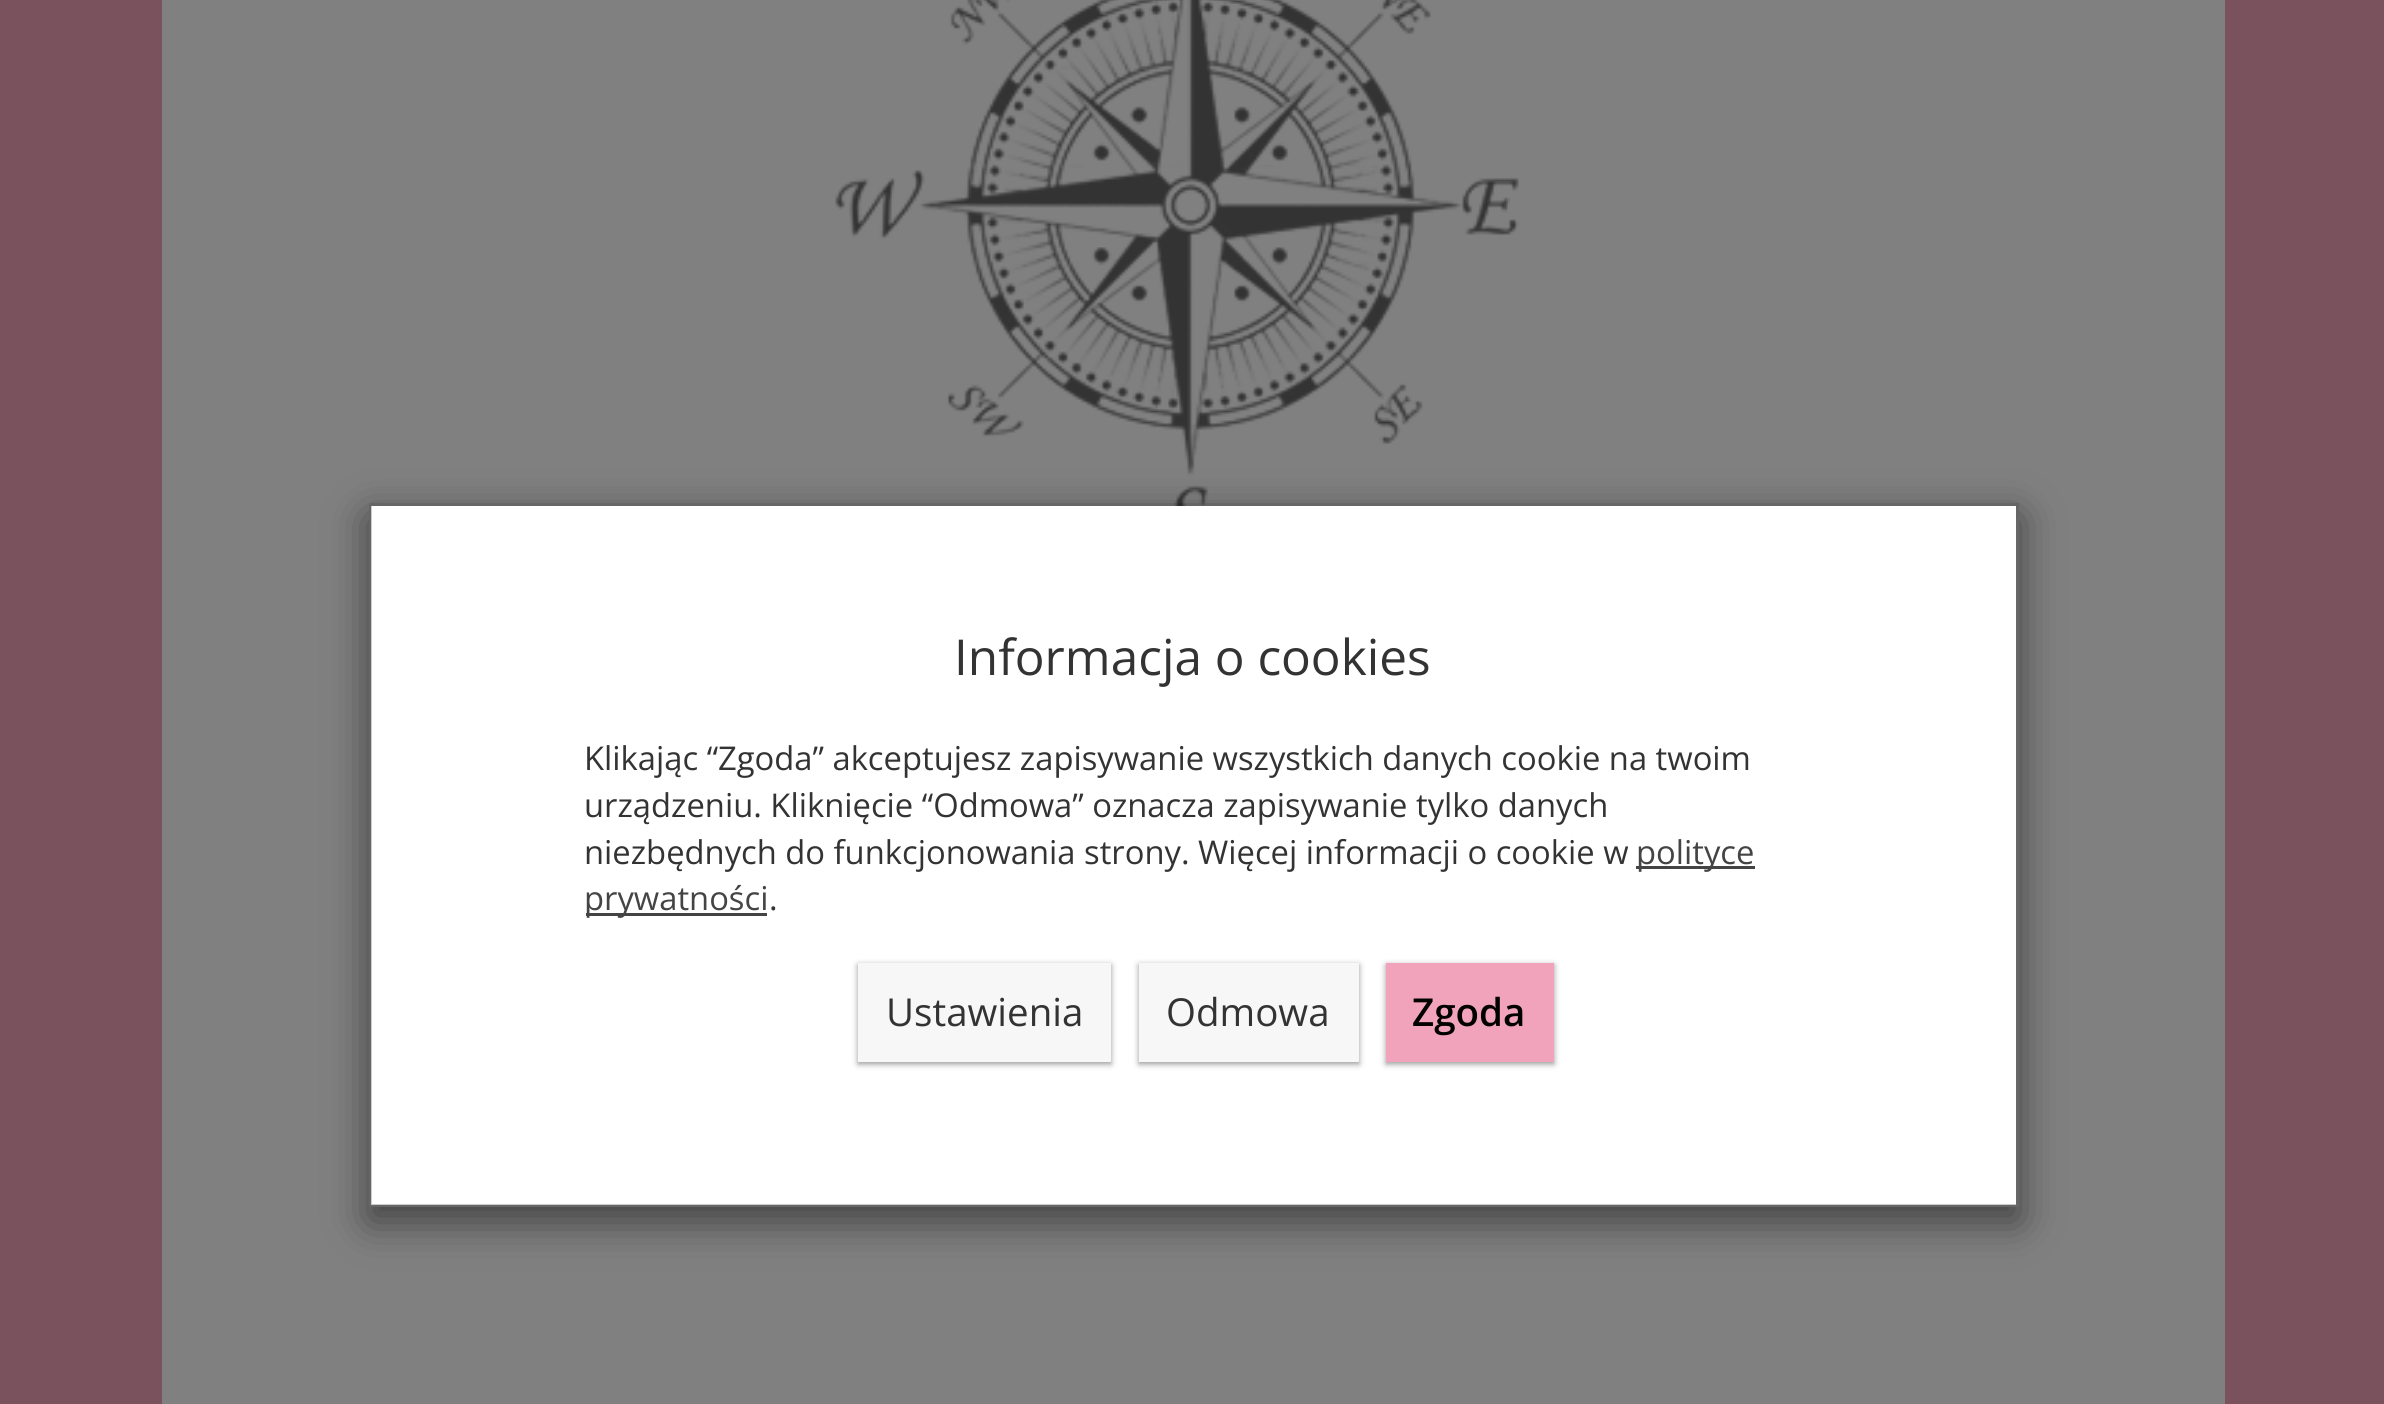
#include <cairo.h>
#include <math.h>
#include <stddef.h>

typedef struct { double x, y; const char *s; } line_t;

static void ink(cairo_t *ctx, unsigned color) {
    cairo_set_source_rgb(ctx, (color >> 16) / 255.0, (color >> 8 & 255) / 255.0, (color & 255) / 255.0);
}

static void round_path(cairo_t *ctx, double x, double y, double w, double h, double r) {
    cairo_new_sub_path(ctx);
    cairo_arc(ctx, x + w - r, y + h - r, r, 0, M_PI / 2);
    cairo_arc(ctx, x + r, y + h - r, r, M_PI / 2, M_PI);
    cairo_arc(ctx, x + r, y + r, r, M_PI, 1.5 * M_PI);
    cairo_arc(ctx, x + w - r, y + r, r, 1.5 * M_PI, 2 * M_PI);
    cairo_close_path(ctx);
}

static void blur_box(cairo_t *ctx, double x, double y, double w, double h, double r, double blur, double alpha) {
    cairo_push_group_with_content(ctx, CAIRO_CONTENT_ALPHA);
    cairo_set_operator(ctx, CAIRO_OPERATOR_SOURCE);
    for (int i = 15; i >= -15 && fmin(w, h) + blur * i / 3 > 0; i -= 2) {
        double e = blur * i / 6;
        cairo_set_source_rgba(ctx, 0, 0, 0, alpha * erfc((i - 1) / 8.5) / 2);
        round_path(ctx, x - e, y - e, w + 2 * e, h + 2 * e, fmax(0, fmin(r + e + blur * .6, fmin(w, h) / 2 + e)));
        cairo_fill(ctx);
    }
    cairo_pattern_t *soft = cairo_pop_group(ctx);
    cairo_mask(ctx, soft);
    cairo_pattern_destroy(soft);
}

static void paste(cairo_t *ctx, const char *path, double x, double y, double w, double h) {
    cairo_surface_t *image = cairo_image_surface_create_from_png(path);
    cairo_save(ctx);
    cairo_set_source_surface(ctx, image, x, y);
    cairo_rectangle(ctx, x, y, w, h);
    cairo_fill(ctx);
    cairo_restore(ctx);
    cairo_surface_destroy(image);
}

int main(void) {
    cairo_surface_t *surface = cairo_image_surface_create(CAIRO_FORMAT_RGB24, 2384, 1404);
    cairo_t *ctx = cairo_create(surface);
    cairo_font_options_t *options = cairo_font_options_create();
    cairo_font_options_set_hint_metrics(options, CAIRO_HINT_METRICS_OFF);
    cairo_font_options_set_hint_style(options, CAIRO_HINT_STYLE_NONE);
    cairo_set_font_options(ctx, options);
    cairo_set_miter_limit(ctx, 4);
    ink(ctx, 0x79525E);
    cairo_paint(ctx);
    ink(ctx, 0x808080);
    cairo_rectangle(ctx, 162, 0, 2063, 1404);
    cairo_fill(ctx);
    paste(ctx, "media/1.png", 835, 0, 684, 506);
    cairo_save(ctx);
    cairo_set_fill_rule(ctx, CAIRO_FILL_RULE_EVEN_ODD);
    cairo_new_path(ctx);
    cairo_move_to(ctx, 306, 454);
    cairo_line_to(ctx, 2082, 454);
    cairo_line_to(ctx, 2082, 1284);
    cairo_line_to(ctx, 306, 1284);
    cairo_close_path(ctx);
    cairo_move_to(ctx, 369, 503);
    cairo_line_to(ctx, 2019, 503);
    cairo_line_to(ctx, 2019, 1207);
    cairo_line_to(ctx, 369, 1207);
    cairo_close_path(ctx);
    cairo_clip(ctx);
    ink(ctx, 0x000000);
    blur_box(ctx, 369, 517, 1650, 704, 0, 20.5, 0.5);
    cairo_restore(ctx);
    ink(ctx, 0xFFFFFF);
    cairo_rectangle(ctx, 371, 506, 1645, 699);
    cairo_fill(ctx);
    cairo_rectangle(ctx, 370.5, 504.5, 1647, 701);
    cairo_set_source_rgba(ctx, 0, 0, 0, 0.2);
    cairo_set_line_width(ctx, 3);
    cairo_stroke(ctx);
    cairo_select_font_face(ctx, "Open Sans", CAIRO_FONT_SLANT_NORMAL, CAIRO_FONT_WEIGHT_NORMAL);
    cairo_set_font_size(ctx, 49.5);
    ink(ctx, 0x333333);
    cairo_move_to(ctx, 954, 675);
    cairo_show_text(ctx, "Informacja o cookies");
    cairo_set_font_size(ctx, 32.75);
    {
        static const line_t items[] = {
            {584, 770, "Klikając “Zgoda” akceptujesz zapisywanie wszystkich danych cookie na twoim"},
            {584, 817, "urządzeniu. Kliknięcie “Odmowa” oznacza zapisywanie tylko danych"},
            {584, 864, "niezbędnych do funkcjonowania strony. Więcej informacji o cookie w"},
        };
        for (size_t i = 0; i < sizeof items / sizeof *items; i++) {
            cairo_move_to(ctx, items[i].x, items[i].y);
            cairo_show_text(ctx, items[i].s);
        }
    }
    ink(ctx, 0x444444);
    cairo_rectangle(ctx, 1636, 866, 119, 3);
    cairo_fill(ctx);
    cairo_move_to(ctx, 1636, 864);
    cairo_show_text(ctx, "polityce");
    cairo_rectangle(ctx, 586, 913, 181, 3);
    cairo_fill(ctx);
    cairo_move_to(ctx, 584, 910);
    cairo_show_text(ctx, "prywatności");
    ink(ctx, 0x333333);
    cairo_move_to(ctx, 769, 910);
    cairo_show_text(ctx, ".");
    ink(ctx, 0x979797);
    blur_box(ctx, 858, 965, 253, 99, 0, 3, 1);
    ink(ctx, 0xF7F7F7);
    cairo_rectangle(ctx, 858, 963, 253, 99);
    cairo_fill(ctx);
    cairo_set_font_size(ctx, 38.5);
    ink(ctx, 0x333333);
    cairo_move_to(ctx, 886, 1026);
    cairo_show_text(ctx, "Ustawienia");
    ink(ctx, 0x979797);
    blur_box(ctx, 1139, 965, 220, 99, 0, 3, 1);
    ink(ctx, 0xF7F7F7);
    cairo_rectangle(ctx, 1139, 963, 220, 99);
    cairo_fill(ctx);
    ink(ctx, 0x333333);
    cairo_move_to(ctx, 1166, 1026);
    cairo_show_text(ctx, "Odmowa");
    ink(ctx, 0x979797);
    blur_box(ctx, 1386, 965, 168, 99, 0, 3, 1);
    ink(ctx, 0xF1A3BB);
    cairo_rectangle(ctx, 1386, 963, 168, 99);
    cairo_fill(ctx);
    cairo_select_font_face(ctx, "Open Sans SemiBold", CAIRO_FONT_SLANT_NORMAL, CAIRO_FONT_WEIGHT_NORMAL);
    ink(ctx, 0x000000);
    cairo_move_to(ctx, 1412, 1026);
    cairo_show_text(ctx, "Zgoda");
    cairo_surface_write_to_png(surface, "image.png");
    cairo_font_options_destroy(options);
    cairo_destroy(ctx);
    cairo_surface_destroy(surface);
    return 0;
}
